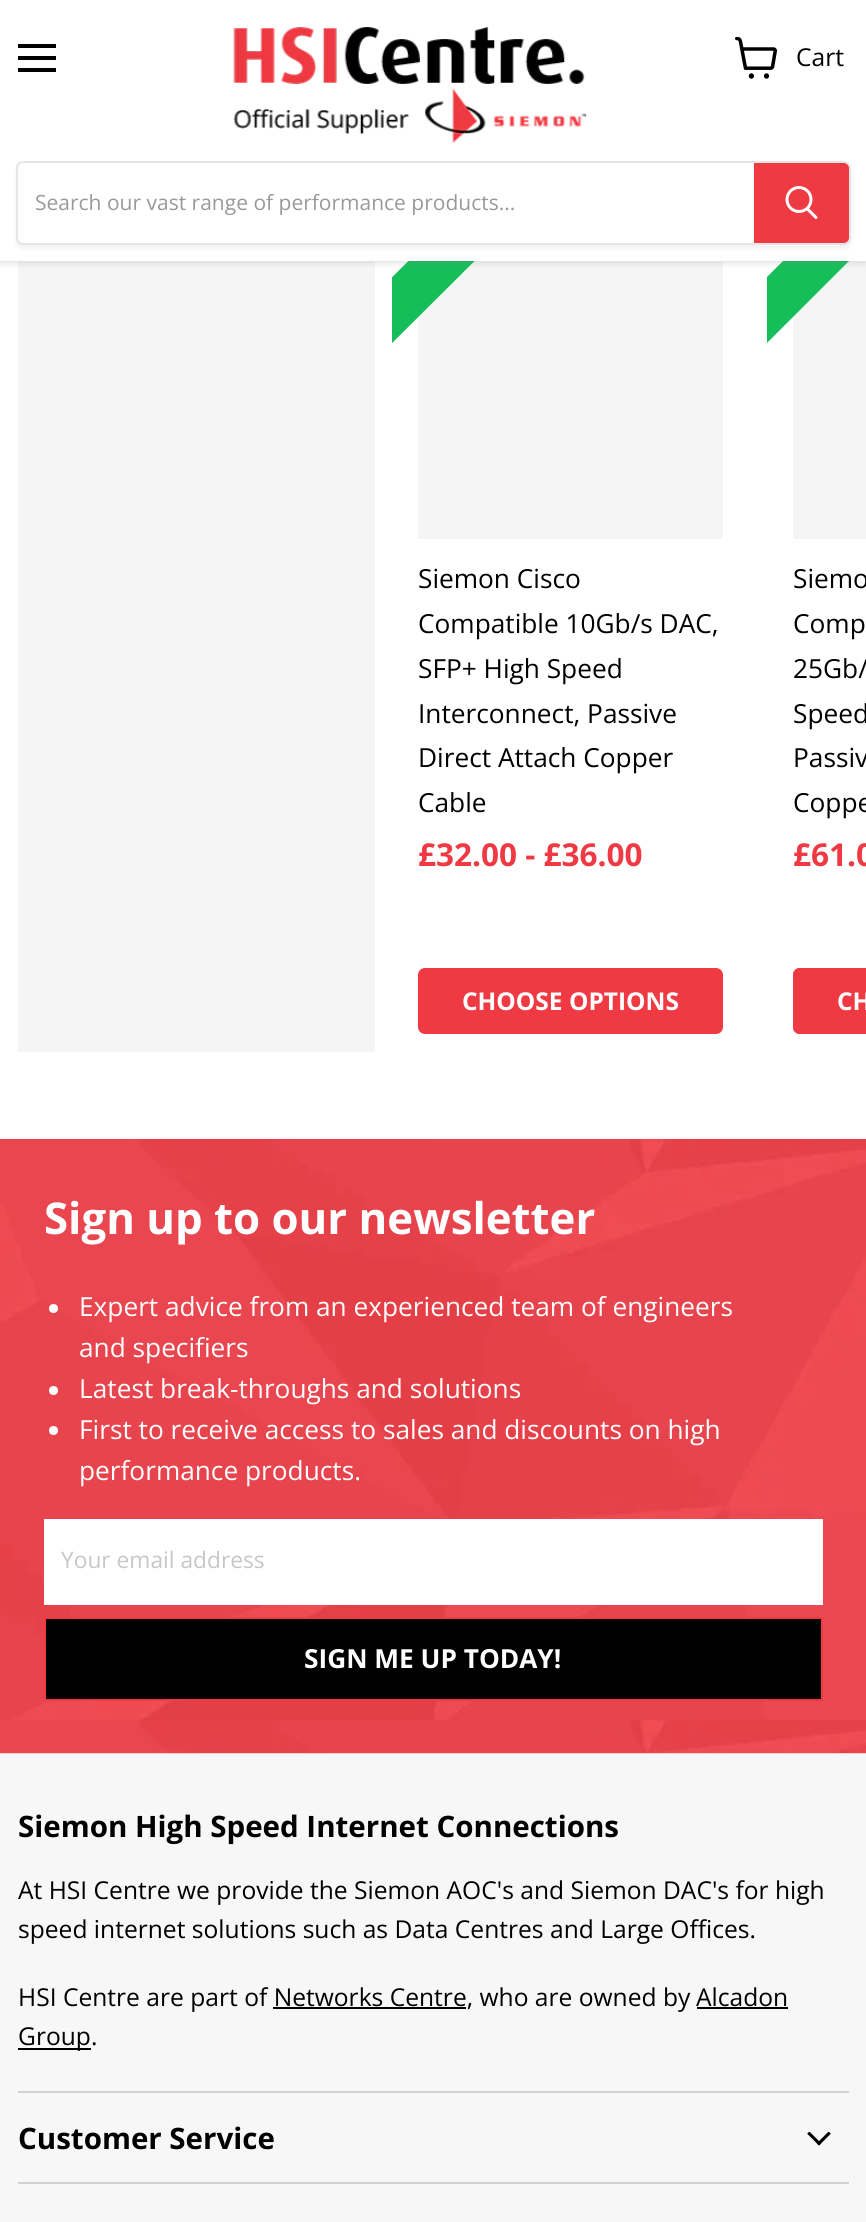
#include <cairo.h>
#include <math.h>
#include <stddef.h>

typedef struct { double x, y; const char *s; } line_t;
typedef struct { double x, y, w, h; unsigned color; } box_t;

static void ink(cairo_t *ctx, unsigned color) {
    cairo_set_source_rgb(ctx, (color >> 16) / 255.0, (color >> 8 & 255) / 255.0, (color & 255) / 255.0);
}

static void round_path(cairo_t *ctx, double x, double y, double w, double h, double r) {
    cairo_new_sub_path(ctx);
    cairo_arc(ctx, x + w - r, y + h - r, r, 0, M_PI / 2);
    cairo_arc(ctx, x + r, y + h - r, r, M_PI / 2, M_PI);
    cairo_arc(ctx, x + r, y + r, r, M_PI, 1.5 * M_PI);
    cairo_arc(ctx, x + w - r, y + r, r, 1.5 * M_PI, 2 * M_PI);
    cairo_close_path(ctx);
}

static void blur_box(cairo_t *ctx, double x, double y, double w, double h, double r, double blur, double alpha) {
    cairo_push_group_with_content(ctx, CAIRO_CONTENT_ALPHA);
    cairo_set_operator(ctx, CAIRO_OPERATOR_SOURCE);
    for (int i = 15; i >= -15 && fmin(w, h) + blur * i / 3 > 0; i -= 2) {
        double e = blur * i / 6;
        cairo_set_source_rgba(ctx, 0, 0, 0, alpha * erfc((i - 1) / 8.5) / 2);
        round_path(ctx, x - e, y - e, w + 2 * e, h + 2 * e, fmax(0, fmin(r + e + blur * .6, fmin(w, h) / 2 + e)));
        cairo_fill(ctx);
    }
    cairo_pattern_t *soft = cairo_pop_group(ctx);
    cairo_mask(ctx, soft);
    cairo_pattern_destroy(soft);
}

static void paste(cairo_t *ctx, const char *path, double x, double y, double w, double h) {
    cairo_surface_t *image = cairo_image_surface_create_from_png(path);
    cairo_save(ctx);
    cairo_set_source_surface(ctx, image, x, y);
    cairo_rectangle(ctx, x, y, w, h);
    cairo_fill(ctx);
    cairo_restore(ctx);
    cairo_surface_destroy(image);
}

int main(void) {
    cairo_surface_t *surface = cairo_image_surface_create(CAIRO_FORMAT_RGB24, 866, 2222);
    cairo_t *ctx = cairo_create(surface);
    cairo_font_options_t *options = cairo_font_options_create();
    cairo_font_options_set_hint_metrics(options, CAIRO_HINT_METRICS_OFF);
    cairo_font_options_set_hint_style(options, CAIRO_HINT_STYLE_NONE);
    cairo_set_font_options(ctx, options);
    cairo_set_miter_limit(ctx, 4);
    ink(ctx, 0xFFFFFF);
    cairo_paint(ctx);
    ink(ctx, 0xF5F5F5);
    cairo_rectangle(ctx, 18, 261, 357, 791);
    cairo_fill(ctx);
    cairo_rectangle(ctx, 418, 261, 305, 278);
    cairo_fill(ctx);
    cairo_save(ctx);
    cairo_rectangle(ctx, 392, 215, 357, 837);
    cairo_clip(ctx);
    ink(ctx, 0x15BE59);
    cairo_new_path(ctx);
    cairo_move_to(ctx, 335, 334);
    cairo_line_to(ctx, 521, 149);
    cairo_line_to(ctx, 554, 182);
    cairo_line_to(ctx, 368, 367);
    cairo_close_path(ctx);
    cairo_fill(ctx);
    cairo_restore(ctx);
    cairo_rectangle(ctx, 793, 261, 73, 278);
    cairo_fill(ctx);
    cairo_save(ctx);
    cairo_rectangle(ctx, 767, 215, 99, 837);
    cairo_clip(ctx);
    ink(ctx, 0x15BE59);
    cairo_new_path(ctx);
    cairo_move_to(ctx, 710, 334);
    cairo_line_to(ctx, 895, 149);
    cairo_line_to(ctx, 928, 182);
    cairo_line_to(ctx, 743, 367);
    cairo_close_path(ctx);
    cairo_fill(ctx);
    cairo_restore(ctx);
    ink(ctx, 0x808080);
    blur_box(ctx, 0, 2, 866, 261, 0, 3.5, 0.25);
    {
        static const box_t items[] = {
            {0, 0, 866, 261, 0xFFFFFF},
            {18, 44, 38, 4, 0x000000},
            {18, 56, 38, 4, 0x000000},
            {18, 68, 38, 4, 0x000000},
        };
        for (size_t i = 0; i < sizeof items / sizeof *items; i++) {
            ink(ctx, items[i].color);
            cairo_rectangle(ctx, items[i].x, items[i].y, items[i].w, items[i].h);
            cairo_fill(ctx);
        }
    }
    paste(ctx, "media/1.png", 735, 37, 42, 42);
    cairo_select_font_face(ctx, "Open Sans", CAIRO_FONT_SLANT_NORMAL, CAIRO_FONT_WEIGHT_NORMAL);
    cairo_set_font_size(ctx, 24.6);
    cairo_move_to(ctx, 796, 66);
    cairo_show_text(ctx, "Cart");
    paste(ctx, "media/2.png", 233, 27, 354, 116);
    cairo_save(ctx);
    cairo_set_fill_rule(ctx, CAIRO_FILL_RULE_EVEN_ODD);
    cairo_new_path(ctx);
    cairo_move_to(ctx, 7, 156);
    cairo_line_to(ctx, 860, 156);
    cairo_line_to(ctx, 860, 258);
    cairo_line_to(ctx, 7, 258);
    cairo_close_path(ctx);
    cairo_move_to(ctx, 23, 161);
    cairo_line_to(ctx, 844, 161);
    cairo_curve_to(ctx, 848, 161, 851, 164, 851, 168);
    cairo_line_to(ctx, 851, 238);
    cairo_curve_to(ctx, 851, 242, 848, 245, 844, 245);
    cairo_line_to(ctx, 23, 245);
    cairo_curve_to(ctx, 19, 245, 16, 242, 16, 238);
    cairo_line_to(ctx, 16, 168);
    cairo_curve_to(ctx, 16, 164, 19, 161, 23, 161);
    cairo_close_path(ctx);
    cairo_clip(ctx);
    ink(ctx, 0x808080);
    blur_box(ctx, 16, 165, 835, 84, 7, 2.5, 0.11);
    cairo_restore(ctx);
    round_path(ctx, 17, 162, 833, 82, 6);
    cairo_set_source_rgba(ctx, 0.502, 0.502, 0.502, 0.2);
    cairo_stroke(ctx);
    cairo_set_font_size(ctx, 21);
    ink(ctx, 0x999999);
    cairo_move_to(ctx, 35, 210);
    cairo_show_text(ctx, "Search our vast range of performance products...");
    ink(ctx, 0xEF3A43);
    cairo_new_path(ctx);
    cairo_move_to(ctx, 755, 164);
    cairo_line_to(ctx, 844, 164);
    cairo_curve_to(ctx, 846, 164, 848, 166, 848, 168);
    cairo_line_to(ctx, 848, 238);
    cairo_curve_to(ctx, 848, 240, 846, 242, 844, 242);
    cairo_line_to(ctx, 755, 242);
    cairo_close_path(ctx);
    cairo_fill_preserve(ctx);
    cairo_stroke(ctx);
    cairo_new_path(ctx);
    cairo_move_to(ctx, 816, 217.5);
    cairo_line_to(ctx, 807.5, 209);
    ink(ctx, 0xFFFFFF);
    cairo_set_line_width(ctx, 3);
    cairo_set_line_cap(ctx, CAIRO_LINE_CAP_ROUND);
    cairo_stroke(ctx);
    cairo_arc(ctx, 799, 199.5, 12, 0, 2 * M_PI);
    cairo_set_line_cap(ctx, CAIRO_LINE_CAP_BUTT);
    cairo_stroke(ctx);
    cairo_set_font_size(ctx, 26.25);
    ink(ctx, 0x000000);
    {
        static const line_t items[] = {
            {418, 588, "Siemon Cisco"},
            {418, 633, "Compatible 10Gb/s DAC,"},
            {418, 678, "SFP+ High Speed"},
            {418, 723, "Interconnect, Passive"},
            {418, 767, "Direct Attach Copper"},
            {418, 812, "Cable"},
        };
        for (size_t i = 0; i < sizeof items / sizeof *items; i++) {
            cairo_move_to(ctx, items[i].x, items[i].y);
            cairo_show_text(ctx, items[i].s);
        }
    }
    cairo_select_font_face(ctx, "Open Sans", CAIRO_FONT_SLANT_NORMAL, CAIRO_FONT_WEIGHT_BOLD);
    cairo_set_font_size(ctx, 31.5);
    ink(ctx, 0xEF3A43);
    cairo_move_to(ctx, 418, 866);
    cairo_show_text(ctx, "£32.00 - £36.00");
    round_path(ctx, 419, 969, 303, 64, 6);
    cairo_fill_preserve(ctx);
    cairo_set_line_width(ctx, 2);
    cairo_stroke(ctx);
    cairo_set_font_size(ctx, 24.5);
    ink(ctx, 0xFFFFFF);
    cairo_move_to(ctx, 462, 1010);
    cairo_show_text(ctx, "CHOOSE OPTIONS");
    cairo_select_font_face(ctx, "Open Sans", CAIRO_FONT_SLANT_NORMAL, CAIRO_FONT_WEIGHT_NORMAL);
    cairo_set_font_size(ctx, 26.25);
    ink(ctx, 0x000000);
    {
        static const line_t items[] = {
            {793, 588, "Siemo"},
            {793, 633, "Comp"},
            {793, 678, "25Gb/"},
            {793, 723, "Speed"},
            {793, 767, "Passiv"},
            {793, 812, "Coppe"},
        };
        for (size_t i = 0; i < sizeof items / sizeof *items; i++) {
            cairo_move_to(ctx, items[i].x, items[i].y);
            cairo_show_text(ctx, items[i].s);
        }
    }
    cairo_select_font_face(ctx, "Open Sans", CAIRO_FONT_SLANT_NORMAL, CAIRO_FONT_WEIGHT_BOLD);
    cairo_set_font_size(ctx, 31.5);
    ink(ctx, 0xEF3A43);
    cairo_move_to(ctx, 793, 866);
    cairo_show_text(ctx, "£61.0");
    cairo_new_path(ctx);
    cairo_move_to(ctx, 800, 968);
    cairo_line_to(ctx, 866, 968);
    cairo_line_to(ctx, 866, 1034);
    cairo_line_to(ctx, 800, 1034);
    cairo_curve_to(ctx, 796, 1034, 793, 1031, 793, 1027);
    cairo_line_to(ctx, 793, 975);
    cairo_curve_to(ctx, 793, 971, 796, 968, 800, 968);
    cairo_close_path(ctx);
    cairo_fill(ctx);
    round_path(ctx, 794, 969, 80, 64, 6);
    cairo_stroke(ctx);
    cairo_set_font_size(ctx, 24.5);
    ink(ctx, 0xFFFFFF);
    cairo_move_to(ctx, 837, 1010);
    cairo_show_text(ctx, "CH");
    paste(ctx, "media/3.png", 0, 1139, 866, 615);
    cairo_set_font_size(ctx, 43.75);
    cairo_move_to(ctx, 44, 1234);
    cairo_show_text(ctx, "Sign up to our newsletter");
    cairo_new_path(ctx);
    cairo_arc(ctx, 53.5, 1308.5, 4.5, 0, 2 * M_PI);
    cairo_fill(ctx);
    cairo_select_font_face(ctx, "Open Sans", CAIRO_FONT_SLANT_NORMAL, CAIRO_FONT_WEIGHT_NORMAL);
    cairo_set_font_size(ctx, 26.25);
    cairo_move_to(ctx, 79, 1316);
    cairo_show_text(ctx, "Expert advice from an experienced team of engineers");
    cairo_move_to(ctx, 79, 1357);
    cairo_show_text(ctx, "and specifiers");
    cairo_new_path(ctx);
    cairo_arc(ctx, 53.5, 1390.5, 4.5, 0, 2 * M_PI);
    cairo_fill(ctx);
    cairo_move_to(ctx, 79, 1398);
    cairo_show_text(ctx, "Latest break-throughs and solutions");
    cairo_new_path(ctx);
    cairo_arc(ctx, 53.5, 1430.5, 4.5, 0, 2 * M_PI);
    cairo_fill(ctx);
    cairo_move_to(ctx, 79, 1439);
    cairo_show_text(ctx, "First to receive access to sales and discounts on high");
    cairo_move_to(ctx, 79, 1480);
    cairo_show_text(ctx, "performance products.");
    cairo_rectangle(ctx, 44, 1519, 779, 86);
    cairo_fill(ctx);
    cairo_set_font_size(ctx, 22.75);
    ink(ctx, 0xC7C7C7);
    cairo_move_to(ctx, 61, 1568);
    cairo_show_text(ctx, "Your email address");
    ink(ctx, 0x000000);
    cairo_rectangle(ctx, 45, 1618, 777, 82);
    cairo_fill_preserve(ctx);
    ink(ctx, 0xEF3A43);
    cairo_stroke(ctx);
    cairo_select_font_face(ctx, "Open Sans", CAIRO_FONT_SLANT_NORMAL, CAIRO_FONT_WEIGHT_BOLD);
    cairo_set_font_size(ctx, 26.25);
    ink(ctx, 0xFFFFFF);
    cairo_move_to(ctx, 304, 1668);
    cairo_show_text(ctx, "SIGN ME UP TODAY!");
    ink(ctx, 0xF7F7F7);
    cairo_rectangle(ctx, 0, 1754, 866, 468);
    cairo_fill(ctx);
    ink(ctx, 0xD2D2D2);
    cairo_rectangle(ctx, 18, 2091, 831, 2);
    cairo_fill(ctx);
    cairo_set_font_size(ctx, 29.5);
    ink(ctx, 0x000000);
    cairo_move_to(ctx, 18, 1837);
    cairo_show_text(ctx, "Siemon High Speed Internet Connections");
    cairo_select_font_face(ctx, "Open Sans", CAIRO_FONT_SLANT_NORMAL, CAIRO_FONT_WEIGHT_NORMAL);
    cairo_set_font_size(ctx, 24.6);
    {
        static const line_t items[] = {
            {18, 1899, "At HSI Centre we provide the Siemon AOC's and Siemon DAC's for high"},
            {18, 1938, "speed internet solutions such as Data Centres and Large Offices."},
            {18, 2006, "HSI Centre are part of Networks Centre, who are owned by"},
            {696, 2006, "Alcadon"},
        };
        for (size_t i = 0; i < sizeof items / sizeof *items; i++) {
            cairo_move_to(ctx, items[i].x, items[i].y);
            cairo_show_text(ctx, items[i].s);
        }
    }
    {
        static const box_t items[] = {
            {697, 2007, 91, 2, 0x000000},
            {273, 2007, 193, 2, 0x000000},
            {18, 2048, 73, 2, 0x000000},
        };
        for (size_t i = 0; i < sizeof items / sizeof *items; i++) {
            ink(ctx, items[i].color);
            cairo_rectangle(ctx, items[i].x, items[i].y, items[i].w, items[i].h);
            cairo_fill(ctx);
        }
    }
    cairo_move_to(ctx, 18, 2045);
    cairo_show_text(ctx, "Group.");
    ink(ctx, 0xD2D2D2);
    cairo_rectangle(ctx, 18, 2182, 831, 2);
    cairo_fill(ctx);
    cairo_select_font_face(ctx, "Open Sans", CAIRO_FONT_SLANT_NORMAL, CAIRO_FONT_WEIGHT_BOLD);
    cairo_set_font_size(ctx, 29.5);
    ink(ctx, 0x000000);
    cairo_move_to(ctx, 18, 2149);
    cairo_show_text(ctx, "Customer Service");
    paste(ctx, "media/4.png", 807, 2132, 24, 14);
    cairo_surface_write_to_png(surface, "image.png");
    cairo_font_options_destroy(options);
    cairo_destroy(ctx);
    cairo_surface_destroy(surface);
    return 0;
}
